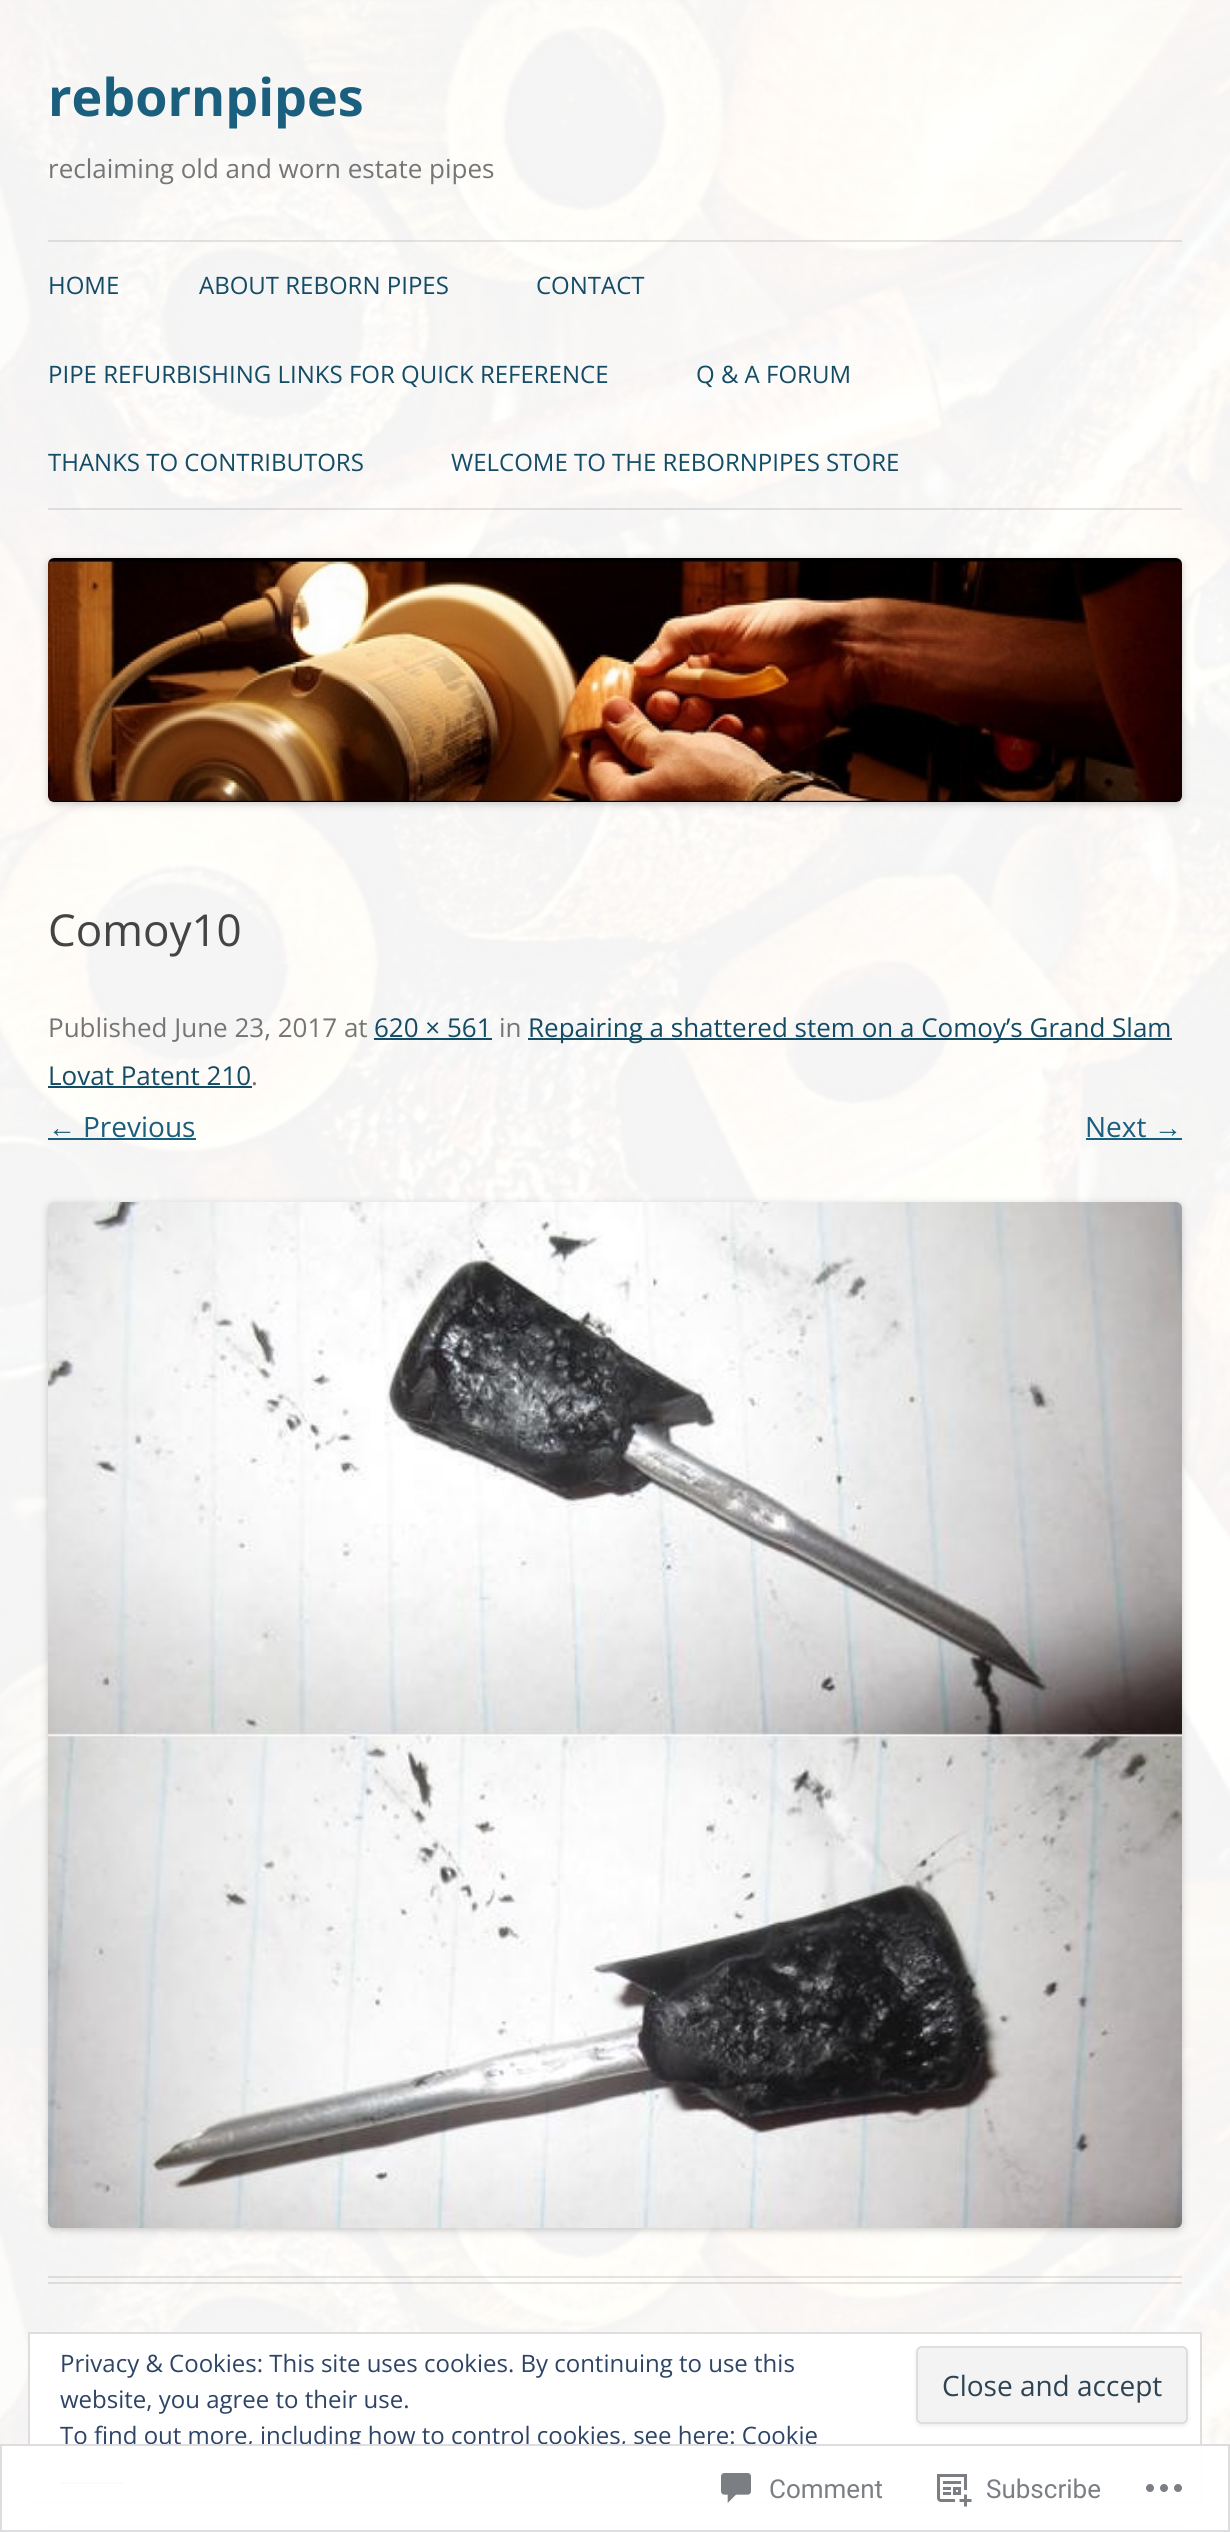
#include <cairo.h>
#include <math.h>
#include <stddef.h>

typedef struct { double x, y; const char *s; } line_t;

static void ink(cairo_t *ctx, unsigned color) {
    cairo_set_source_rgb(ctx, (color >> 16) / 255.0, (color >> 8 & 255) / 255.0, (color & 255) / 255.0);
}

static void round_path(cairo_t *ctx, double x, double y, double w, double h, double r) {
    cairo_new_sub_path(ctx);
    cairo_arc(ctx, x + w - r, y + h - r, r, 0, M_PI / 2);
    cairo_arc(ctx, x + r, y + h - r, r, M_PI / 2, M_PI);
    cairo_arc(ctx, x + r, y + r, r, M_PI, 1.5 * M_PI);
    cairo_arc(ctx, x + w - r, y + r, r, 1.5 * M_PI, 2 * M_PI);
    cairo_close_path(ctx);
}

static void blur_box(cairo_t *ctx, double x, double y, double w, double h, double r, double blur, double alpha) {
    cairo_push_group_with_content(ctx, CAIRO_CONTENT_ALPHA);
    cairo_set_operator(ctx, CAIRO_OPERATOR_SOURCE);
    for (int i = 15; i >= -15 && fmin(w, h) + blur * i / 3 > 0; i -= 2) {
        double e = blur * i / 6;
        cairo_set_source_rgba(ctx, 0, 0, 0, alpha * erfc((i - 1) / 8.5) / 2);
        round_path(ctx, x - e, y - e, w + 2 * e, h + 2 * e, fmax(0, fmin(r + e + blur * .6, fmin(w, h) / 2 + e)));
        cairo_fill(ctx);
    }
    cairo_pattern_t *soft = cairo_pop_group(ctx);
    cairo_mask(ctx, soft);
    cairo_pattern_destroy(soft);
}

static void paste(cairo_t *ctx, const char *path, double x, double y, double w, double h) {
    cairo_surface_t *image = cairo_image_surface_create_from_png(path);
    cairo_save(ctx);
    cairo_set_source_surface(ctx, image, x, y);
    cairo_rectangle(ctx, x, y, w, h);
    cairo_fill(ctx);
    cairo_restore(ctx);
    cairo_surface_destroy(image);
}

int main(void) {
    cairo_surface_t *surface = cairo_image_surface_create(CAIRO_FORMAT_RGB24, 1230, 2532);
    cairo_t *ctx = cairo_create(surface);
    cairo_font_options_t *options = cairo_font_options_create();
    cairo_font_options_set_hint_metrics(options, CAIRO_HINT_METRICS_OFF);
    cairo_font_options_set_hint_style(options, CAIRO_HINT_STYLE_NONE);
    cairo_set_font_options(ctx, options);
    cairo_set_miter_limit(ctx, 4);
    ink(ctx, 0xFFFFFF);
    cairo_paint(ctx);
    paste(ctx, "media/1.png", 0, 0, 1230, 2532);
    cairo_select_font_face(ctx, "Open Sans", CAIRO_FONT_SLANT_NORMAL, CAIRO_FONT_WEIGHT_BOLD);
    cairo_set_font_size(ctx, 52);
    ink(ctx, 0x1A5F7E);
    cairo_move_to(ctx, 48, 116);
    cairo_show_text(ctx, "rebornpipes");
    cairo_select_font_face(ctx, "Open Sans", CAIRO_FONT_SLANT_NORMAL, CAIRO_FONT_WEIGHT_NORMAL);
    cairo_set_font_size(ctx, 26);
    ink(ctx, 0x757575);
    cairo_move_to(ctx, 48, 178);
    cairo_show_text(ctx, "reclaiming old and worn estate pipes");
    cairo_set_source_rgba(ctx, 0, 0, 0, 0.1);
    cairo_rectangle(ctx, 48, 240, 1134, 2);
    cairo_fill(ctx);
    cairo_rectangle(ctx, 48, 508, 1134, 2);
    cairo_fill(ctx);
    cairo_set_font_size(ctx, 24);
    ink(ctx, 0x144C66);
    {
        static const line_t items[] = {
            {48, 294, "HOME"},
            {199, 294, "ABOUT REBORN PIPES"},
            {536, 294, "CONTACT"},
            {48, 383, "PIPE REFURBISHING LINKS FOR QUICK REFERENCE"},
            {696, 383, "Q & A FORUM"},
            {48, 471, "THANKS TO CONTRIBUTORS"},
            {451, 471, "WELCOME TO THE REBORNPIPES STORE"},
        };
        for (size_t i = 0; i < sizeof items / sizeof *items; i++) {
            cairo_move_to(ctx, items[i].x, items[i].y);
            cairo_show_text(ctx, items[i].s);
        }
    }
    ink(ctx, 0x000000);
    blur_box(ctx, 48, 560, 1134, 244, 6, 4, 0.2);
    paste(ctx, "media/2.png", 48, 558, 1134, 244);
    cairo_set_source_rgba(ctx, 0, 0, 0, 0.1);
    cairo_rectangle(ctx, 48, 2276, 1134, 2);
    cairo_fill(ctx);
    cairo_rectangle(ctx, 48, 2282, 1134, 2);
    cairo_fill(ctx);
    cairo_set_font_size(ctx, 44);
    ink(ctx, 0x444444);
    cairo_move_to(ctx, 48, 946);
    cairo_show_text(ctx, "Comoy10");
    cairo_set_font_size(ctx, 26);
    ink(ctx, 0x757575);
    cairo_move_to(ctx, 48, 1037);
    cairo_show_text(ctx, "Published June 23, 2017 at");
    ink(ctx, 0x144C66);
    cairo_move_to(ctx, 374, 1037);
    cairo_show_text(ctx, "620 × 561");
    cairo_rectangle(ctx, 374, 1038, 118, 2);
    cairo_fill(ctx);
    ink(ctx, 0x757575);
    cairo_move_to(ctx, 499, 1037);
    cairo_show_text(ctx, "in");
    ink(ctx, 0x144C66);
    cairo_rectangle(ctx, 528, 1038, 644, 2);
    cairo_fill(ctx);
    cairo_move_to(ctx, 528, 1037);
    cairo_show_text(ctx, "Repairing a shattered stem on a Comoy’s Grand Slam");
    cairo_move_to(ctx, 48, 1085);
    cairo_show_text(ctx, "Lovat Patent 210");
    cairo_rectangle(ctx, 48, 1086, 204, 2);
    cairo_fill(ctx);
    ink(ctx, 0x757575);
    cairo_move_to(ctx, 251, 1085);
    cairo_show_text(ctx, ".");
    cairo_select_font_face(ctx, "Liberation Sans", CAIRO_FONT_SLANT_NORMAL, CAIRO_FONT_WEIGHT_NORMAL);
    cairo_set_font_size(ctx, 28);
    ink(ctx, 0x1A5F7E);
    cairo_move_to(ctx, 48, 1137);
    cairo_show_text(ctx, "←");
    cairo_rectangle(ctx, 48, 1138, 148, 2);
    cairo_fill(ctx);
    cairo_select_font_face(ctx, "Open Sans", CAIRO_FONT_SLANT_NORMAL, CAIRO_FONT_WEIGHT_NORMAL);
    cairo_move_to(ctx, 83, 1137);
    cairo_show_text(ctx, "Previous");
    cairo_move_to(ctx, 1085, 1137);
    cairo_show_text(ctx, "Next");
    cairo_select_font_face(ctx, "Liberation Sans", CAIRO_FONT_SLANT_NORMAL, CAIRO_FONT_WEIGHT_NORMAL);
    cairo_move_to(ctx, 1154, 1137);
    cairo_show_text(ctx, "→");
    cairo_rectangle(ctx, 1086, 1138, 96, 2);
    cairo_fill(ctx);
    ink(ctx, 0x000000);
    blur_box(ctx, 48, 1204, 1134, 1026, 6, 4, 0.2);
    paste(ctx, "media/3.png", 48, 1202, 1134, 1026);
    ink(ctx, 0xDCDCDE);
    cairo_rectangle(ctx, 48, 2524, 1134, 4);
    cairo_fill(ctx);
    ink(ctx, 0xFFFFFF);
    cairo_rectangle(ctx, 29, 2333, 1172, 170);
    cairo_fill_preserve(ctx);
    ink(ctx, 0xDEDEDE);
    cairo_stroke(ctx);
    cairo_select_font_face(ctx, "Open Sans", CAIRO_FONT_SLANT_NORMAL, CAIRO_FONT_WEIGHT_NORMAL);
    cairo_set_font_size(ctx, 24);
    ink(ctx, 0x2E4467);
    cairo_move_to(ctx, 60, 2372);
    cairo_show_text(ctx, "Privacy & Cookies: This site uses cookies. By continuing to use this");
    cairo_move_to(ctx, 60, 2408);
    cairo_show_text(ctx, "website, you agree to their use.");
    ink(ctx, 0x404040);
    blur_box(ctx, 916, 2348, 272, 78, 6, 2, 0.1);
    ink(ctx, 0xF3F3F3);
    round_path(ctx, 917, 2347, 270, 76, 5);
    cairo_fill_preserve(ctx);
    ink(ctx, 0xDEDEDE);
    cairo_stroke(ctx);
    cairo_set_font_size(ctx, 28);
    ink(ctx, 0x2E4453);
    cairo_move_to(ctx, 942, 2396);
    cairo_show_text(ctx, "Close and accept");
    cairo_set_font_size(ctx, 24);
    ink(ctx, 0x2E4467);
    cairo_move_to(ctx, 60, 2444);
    cairo_show_text(ctx, "To find out more, including how to control cookies, see here: Cookie");
    cairo_rectangle(ctx, 742, 2446, 76, 2);
    cairo_fill(ctx);
    cairo_rectangle(ctx, 60, 2482, 64, 2);
    cairo_fill(ctx);
    cairo_set_source_rgba(ctx, 1, 1, 1, 0.98);
    cairo_rectangle(ctx, 0, 2444, 1230, 88);
    cairo_fill(ctx);
    cairo_rectangle(ctx, 1, 2445, 1228, 86);
    cairo_set_source_rgba(ctx, 0.863, 0.863, 0.871, 0.98);
    cairo_stroke(ctx);
    paste(ctx, "media/4.png", 721, 2473, 30, 30);
    cairo_select_font_face(ctx, "Roboto", CAIRO_FONT_SLANT_NORMAL, CAIRO_FONT_WEIGHT_NORMAL);
    cairo_set_font_size(ctx, 26);
    ink(ctx, 0x7B7F85);
    cairo_move_to(ctx, 769, 2498);
    cairo_show_text(ctx, "Comment");
    paste(ctx, "media/5.png", 937, 2474, 35, 33);
    cairo_move_to(ctx, 986, 2498);
    cairo_show_text(ctx, "Subscribe");
    paste(ctx, "media/6.png", 1146, 2484, 36, 8);
    cairo_surface_write_to_png(surface, "image.png");
    cairo_font_options_destroy(options);
    cairo_destroy(ctx);
    cairo_surface_destroy(surface);
    return 0;
}
